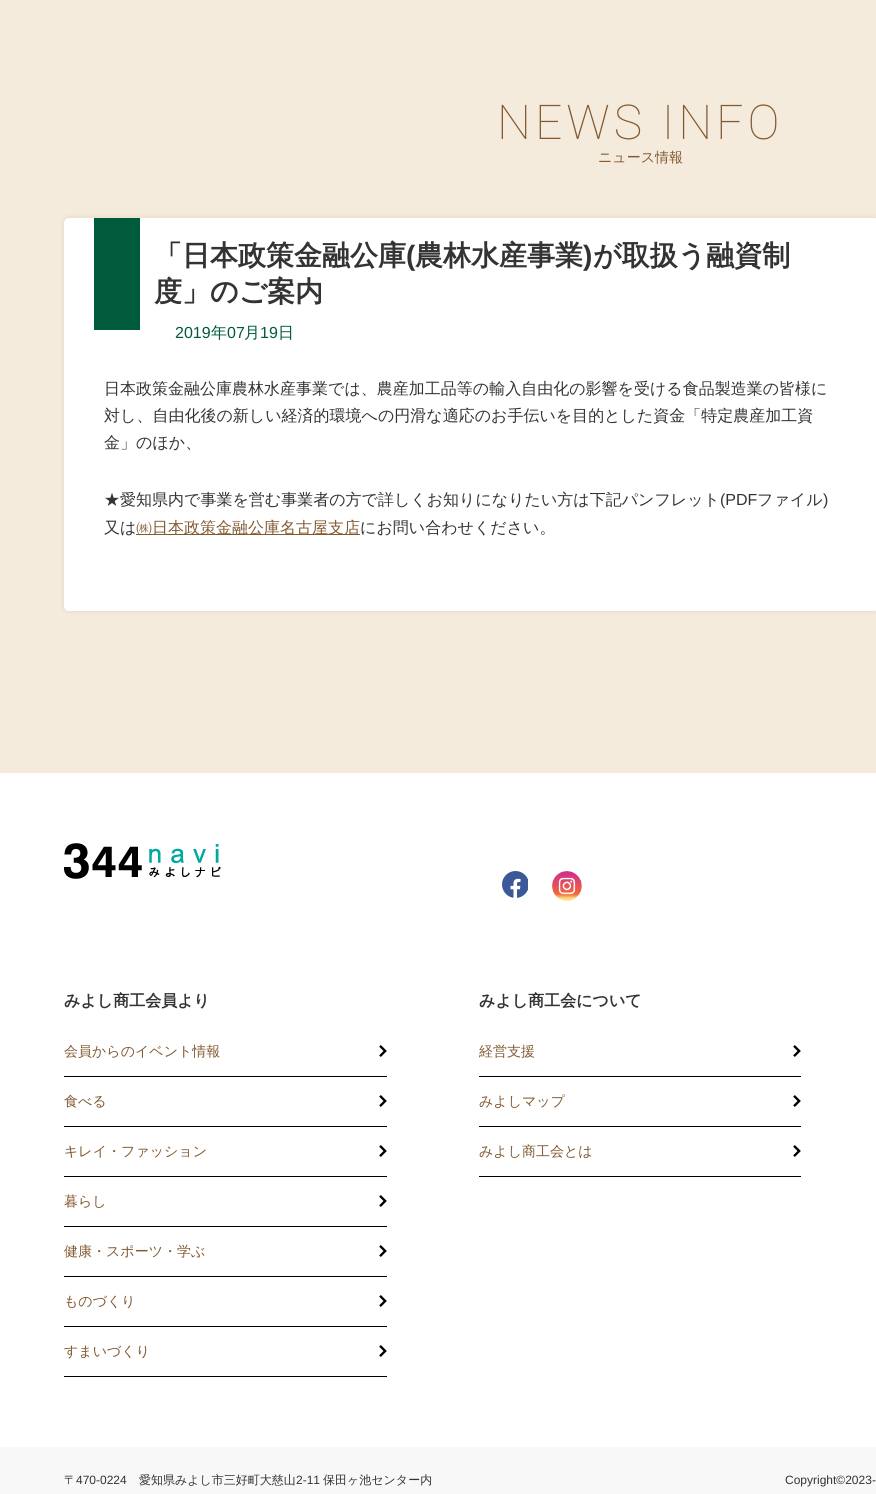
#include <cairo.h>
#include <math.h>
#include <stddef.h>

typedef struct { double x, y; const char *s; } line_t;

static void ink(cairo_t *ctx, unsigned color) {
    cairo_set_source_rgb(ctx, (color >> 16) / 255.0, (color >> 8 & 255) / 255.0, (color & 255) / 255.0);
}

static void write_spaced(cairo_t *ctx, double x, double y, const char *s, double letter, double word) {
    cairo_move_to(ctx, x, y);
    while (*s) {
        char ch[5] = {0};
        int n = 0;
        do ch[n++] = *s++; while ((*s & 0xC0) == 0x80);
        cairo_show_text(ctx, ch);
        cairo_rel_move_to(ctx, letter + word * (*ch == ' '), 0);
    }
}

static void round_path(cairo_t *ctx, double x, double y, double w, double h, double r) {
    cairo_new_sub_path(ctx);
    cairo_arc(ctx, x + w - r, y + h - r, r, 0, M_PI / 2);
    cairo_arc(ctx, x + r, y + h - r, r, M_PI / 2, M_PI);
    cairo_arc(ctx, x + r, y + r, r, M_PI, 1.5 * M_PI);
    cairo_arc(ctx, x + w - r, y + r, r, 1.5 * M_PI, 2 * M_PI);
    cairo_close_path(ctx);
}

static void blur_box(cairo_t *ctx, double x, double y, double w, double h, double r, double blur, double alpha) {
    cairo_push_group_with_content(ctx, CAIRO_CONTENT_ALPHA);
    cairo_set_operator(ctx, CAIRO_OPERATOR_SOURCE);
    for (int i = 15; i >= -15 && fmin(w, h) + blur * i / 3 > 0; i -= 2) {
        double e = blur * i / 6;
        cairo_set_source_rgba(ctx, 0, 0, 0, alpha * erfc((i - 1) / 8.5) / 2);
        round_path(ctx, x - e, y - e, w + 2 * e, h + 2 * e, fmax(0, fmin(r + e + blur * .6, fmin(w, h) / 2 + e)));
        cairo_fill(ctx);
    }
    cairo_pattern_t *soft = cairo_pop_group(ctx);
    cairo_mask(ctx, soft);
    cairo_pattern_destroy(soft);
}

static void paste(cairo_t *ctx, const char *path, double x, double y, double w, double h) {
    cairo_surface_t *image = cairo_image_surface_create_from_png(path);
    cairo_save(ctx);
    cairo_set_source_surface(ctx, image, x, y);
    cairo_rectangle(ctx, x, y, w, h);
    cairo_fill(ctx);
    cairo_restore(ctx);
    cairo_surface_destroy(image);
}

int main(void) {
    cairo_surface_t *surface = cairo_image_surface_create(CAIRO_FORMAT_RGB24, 876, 1494);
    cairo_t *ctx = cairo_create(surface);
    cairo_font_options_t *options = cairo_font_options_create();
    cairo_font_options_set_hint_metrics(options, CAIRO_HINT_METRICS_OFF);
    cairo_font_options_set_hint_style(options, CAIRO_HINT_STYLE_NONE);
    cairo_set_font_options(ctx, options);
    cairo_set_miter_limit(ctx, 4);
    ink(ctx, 0xF5EBDC);
    cairo_paint(ctx);
    cairo_select_font_face(ctx, "Roboto ExtraLight", CAIRO_FONT_SLANT_NORMAL, CAIRO_FONT_WEIGHT_NORMAL);
    cairo_set_font_size(ctx, 48);
    ink(ctx, 0x825A32);
    write_spaced(ctx, 497, 139, "NEWS INFO", 4, 0);
    cairo_select_font_face(ctx, "WenQuanYi Zen Hei Medium", CAIRO_FONT_SLANT_NORMAL, CAIRO_FONT_WEIGHT_NORMAL);
    cairo_set_font_size(ctx, 14);
    cairo_move_to(ctx, 598, 162);
    cairo_show_text(ctx, "ニュース情報");
    ink(ctx, 0x000000);
    blur_box(ctx, 64, 218, 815, 393, 5, 2.5, 0.1);
    ink(ctx, 0xFFFFFF);
    round_path(ctx, 64, 218, 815, 393, 5);
    cairo_fill(ctx);
    ink(ctx, 0x005A3C);
    cairo_rectangle(ctx, 94, 218, 46, 112);
    cairo_fill(ctx);
    cairo_select_font_face(ctx, "WenQuanYi Zen Hei", CAIRO_FONT_SLANT_NORMAL, CAIRO_FONT_WEIGHT_BOLD);
    cairo_set_font_size(ctx, 28);
    ink(ctx, 0x333333);
    cairo_move_to(ctx, 154, 265);
    cairo_show_text(ctx, "「日本政策金融公庫");
    cairo_select_font_face(ctx, "Liberation Sans", CAIRO_FONT_SLANT_NORMAL, CAIRO_FONT_WEIGHT_BOLD);
    cairo_move_to(ctx, 406, 265);
    cairo_show_text(ctx, "(");
    cairo_select_font_face(ctx, "WenQuanYi Zen Hei", CAIRO_FONT_SLANT_NORMAL, CAIRO_FONT_WEIGHT_BOLD);
    cairo_move_to(ctx, 415, 265);
    cairo_show_text(ctx, "農林水産事業");
    cairo_select_font_face(ctx, "Liberation Sans", CAIRO_FONT_SLANT_NORMAL, CAIRO_FONT_WEIGHT_BOLD);
    cairo_move_to(ctx, 583, 265);
    cairo_show_text(ctx, ")");
    cairo_select_font_face(ctx, "WenQuanYi Zen Hei", CAIRO_FONT_SLANT_NORMAL, CAIRO_FONT_WEIGHT_BOLD);
    cairo_move_to(ctx, 593, 265);
    cairo_show_text(ctx, "が取扱う融資制");
    cairo_move_to(ctx, 154, 301);
    cairo_show_text(ctx, "度」のご案内");
    cairo_select_font_face(ctx, "Liberation Sans", CAIRO_FONT_SLANT_NORMAL, CAIRO_FONT_WEIGHT_NORMAL);
    cairo_set_font_size(ctx, 16);
    ink(ctx, 0x005A3C);
    cairo_move_to(ctx, 175, 338);
    cairo_show_text(ctx, "2019");
    cairo_select_font_face(ctx, "WenQuanYi Zen Hei Medium", CAIRO_FONT_SLANT_NORMAL, CAIRO_FONT_WEIGHT_NORMAL);
    cairo_move_to(ctx, 211, 338);
    cairo_show_text(ctx, "年");
    cairo_select_font_face(ctx, "Liberation Sans", CAIRO_FONT_SLANT_NORMAL, CAIRO_FONT_WEIGHT_NORMAL);
    cairo_move_to(ctx, 227, 338);
    cairo_show_text(ctx, "07");
    cairo_select_font_face(ctx, "WenQuanYi Zen Hei Medium", CAIRO_FONT_SLANT_NORMAL, CAIRO_FONT_WEIGHT_NORMAL);
    cairo_move_to(ctx, 244, 338);
    cairo_show_text(ctx, "月");
    cairo_select_font_face(ctx, "Liberation Sans", CAIRO_FONT_SLANT_NORMAL, CAIRO_FONT_WEIGHT_NORMAL);
    cairo_move_to(ctx, 260, 338);
    cairo_show_text(ctx, "19");
    cairo_select_font_face(ctx, "WenQuanYi Zen Hei Medium", CAIRO_FONT_SLANT_NORMAL, CAIRO_FONT_WEIGHT_NORMAL);
    cairo_move_to(ctx, 278, 338);
    cairo_show_text(ctx, "日");
    ink(ctx, 0x333333);
    {
        static const line_t items[] = {
            {104, 394, "日本政策金融公庫農林水産事業では、農産加工品等の輸入自由化の影響を受ける食品製造業の皆様に"},
            {104, 421, "対し、自由化後の新しい経済的環境への円滑な適応のお手伝いを目的とした資金「特定農産加工資"},
            {104, 448, "金」のほか、"},
            {104, 505, "★愛知県内で事業を営む事業者の方で詳しくお知りになりたい方は下記パンフレット"},
        };
        for (size_t i = 0; i < sizeof items / sizeof *items; i++) {
            cairo_move_to(ctx, items[i].x, items[i].y);
            cairo_show_text(ctx, items[i].s);
        }
    }
    cairo_select_font_face(ctx, "Liberation Sans", CAIRO_FONT_SLANT_NORMAL, CAIRO_FONT_WEIGHT_NORMAL);
    cairo_move_to(ctx, 720, 505);
    cairo_show_text(ctx, "(PDF");
    cairo_select_font_face(ctx, "WenQuanYi Zen Hei Medium", CAIRO_FONT_SLANT_NORMAL, CAIRO_FONT_WEIGHT_NORMAL);
    cairo_move_to(ctx, 757, 505);
    cairo_show_text(ctx, "ファイル");
    cairo_select_font_face(ctx, "Liberation Sans", CAIRO_FONT_SLANT_NORMAL, CAIRO_FONT_WEIGHT_NORMAL);
    cairo_move_to(ctx, 823, 505);
    cairo_show_text(ctx, ")");
    cairo_select_font_face(ctx, "WenQuanYi Zen Hei Medium", CAIRO_FONT_SLANT_NORMAL, CAIRO_FONT_WEIGHT_NORMAL);
    cairo_move_to(ctx, 104, 533);
    cairo_show_text(ctx, "又は");
    ink(ctx, 0x825A32);
    cairo_rectangle(ctx, 136, 534, 224, 1);
    cairo_fill(ctx);
    cairo_move_to(ctx, 136, 533);
    cairo_show_text(ctx, "㈱日本政策金融公庫名古屋支店");
    ink(ctx, 0x333333);
    cairo_move_to(ctx, 360, 533);
    cairo_show_text(ctx, "にお問い合わせください。");
    ink(ctx, 0xFFFFFF);
    cairo_rectangle(ctx, 0, 773, 876, 674);
    cairo_fill(ctx);
    paste(ctx, "media/1.png", 64, 843, 157, 36);
    paste(ctx, "media/2.png", 502, 871, 26, 27);
    paste(ctx, "media/3.png", 552, 871, 30, 30);
    cairo_select_font_face(ctx, "WenQuanYi Zen Hei", CAIRO_FONT_SLANT_NORMAL, CAIRO_FONT_WEIGHT_BOLD);
    ink(ctx, 0x333333);
    cairo_move_to(ctx, 64, 1006);
    cairo_show_text(ctx, "みよし商工会員より");
    ink(ctx, 0x000000);
    cairo_rectangle(ctx, 64, 1076, 323, 1);
    cairo_fill(ctx);
    cairo_select_font_face(ctx, "WenQuanYi Zen Hei Medium", CAIRO_FONT_SLANT_NORMAL, CAIRO_FONT_WEIGHT_NORMAL);
    cairo_set_font_size(ctx, 14);
    ink(ctx, 0x825A32);
    cairo_move_to(ctx, 64, 1056);
    cairo_show_text(ctx, "会員からのイベント情報");
    paste(ctx, "media/4.png", 379, 1045, 8, 12);
    ink(ctx, 0x000000);
    cairo_rectangle(ctx, 64, 1126, 323, 1);
    cairo_fill(ctx);
    ink(ctx, 0x825A32);
    cairo_move_to(ctx, 64, 1106);
    cairo_show_text(ctx, "食べる");
    paste(ctx, "media/4.png", 379, 1095, 8, 12);
    ink(ctx, 0x000000);
    cairo_rectangle(ctx, 64, 1176, 323, 1);
    cairo_fill(ctx);
    ink(ctx, 0x825A32);
    cairo_move_to(ctx, 64, 1156);
    cairo_show_text(ctx, "キレイ・ファッション");
    paste(ctx, "media/4.png", 379, 1145, 8, 12);
    ink(ctx, 0x000000);
    cairo_rectangle(ctx, 64, 1226, 323, 1);
    cairo_fill(ctx);
    ink(ctx, 0x825A32);
    cairo_move_to(ctx, 64, 1206);
    cairo_show_text(ctx, "暮らし");
    paste(ctx, "media/4.png", 379, 1195, 8, 12);
    ink(ctx, 0x000000);
    cairo_rectangle(ctx, 64, 1276, 323, 1);
    cairo_fill(ctx);
    ink(ctx, 0x825A32);
    cairo_move_to(ctx, 64, 1256);
    cairo_show_text(ctx, "健康・スポーツ・学ぶ");
    paste(ctx, "media/4.png", 379, 1245, 8, 12);
    ink(ctx, 0x000000);
    cairo_rectangle(ctx, 64, 1326, 323, 1);
    cairo_fill(ctx);
    ink(ctx, 0x825A32);
    cairo_move_to(ctx, 64, 1306);
    cairo_show_text(ctx, "ものづくり");
    paste(ctx, "media/4.png", 379, 1295, 8, 12);
    ink(ctx, 0x000000);
    cairo_rectangle(ctx, 64, 1376, 323, 1);
    cairo_fill(ctx);
    ink(ctx, 0x825A32);
    cairo_move_to(ctx, 64, 1356);
    cairo_show_text(ctx, "すまいづくり");
    paste(ctx, "media/4.png", 379, 1345, 8, 12);
    cairo_select_font_face(ctx, "WenQuanYi Zen Hei", CAIRO_FONT_SLANT_NORMAL, CAIRO_FONT_WEIGHT_BOLD);
    cairo_set_font_size(ctx, 16);
    ink(ctx, 0x333333);
    cairo_move_to(ctx, 479, 1006);
    cairo_show_text(ctx, "みよし商工会について");
    ink(ctx, 0x000000);
    cairo_rectangle(ctx, 479, 1076, 322, 1);
    cairo_fill(ctx);
    cairo_select_font_face(ctx, "WenQuanYi Zen Hei Medium", CAIRO_FONT_SLANT_NORMAL, CAIRO_FONT_WEIGHT_NORMAL);
    cairo_set_font_size(ctx, 14);
    ink(ctx, 0x825A32);
    cairo_move_to(ctx, 479, 1056);
    cairo_show_text(ctx, "経営支援");
    paste(ctx, "media/4.png", 793, 1045, 8, 12);
    ink(ctx, 0x000000);
    cairo_rectangle(ctx, 479, 1126, 322, 1);
    cairo_fill(ctx);
    ink(ctx, 0x825A32);
    cairo_move_to(ctx, 479, 1106);
    cairo_show_text(ctx, "みよしマップ");
    paste(ctx, "media/4.png", 793, 1095, 8, 12);
    ink(ctx, 0x000000);
    cairo_rectangle(ctx, 479, 1176, 322, 1);
    cairo_fill(ctx);
    ink(ctx, 0x825A32);
    cairo_move_to(ctx, 479, 1156);
    cairo_show_text(ctx, "みよし商工会とは");
    paste(ctx, "media/4.png", 793, 1145, 8, 12);
    ink(ctx, 0xF8F8F8);
    cairo_rectangle(ctx, 0, 1447, 876, 47);
    cairo_fill(ctx);
    cairo_set_font_size(ctx, 12);
    ink(ctx, 0x333333);
    cairo_move_to(ctx, 64, 1484);
    cairo_show_text(ctx, "〒");
    cairo_select_font_face(ctx, "Liberation Sans", CAIRO_FONT_SLANT_NORMAL, CAIRO_FONT_WEIGHT_NORMAL);
    cairo_move_to(ctx, 76, 1484);
    cairo_show_text(ctx, "470-0224");
    cairo_select_font_face(ctx, "WenQuanYi Zen Hei Medium", CAIRO_FONT_SLANT_NORMAL, CAIRO_FONT_WEIGHT_NORMAL);
    cairo_move_to(ctx, 139, 1484);
    cairo_show_text(ctx, "愛知県みよし市三好町大慈山");
    cairo_select_font_face(ctx, "Liberation Sans", CAIRO_FONT_SLANT_NORMAL, CAIRO_FONT_WEIGHT_NORMAL);
    cairo_move_to(ctx, 296, 1484);
    cairo_show_text(ctx, "2-11");
    cairo_select_font_face(ctx, "WenQuanYi Zen Hei Medium", CAIRO_FONT_SLANT_NORMAL, CAIRO_FONT_WEIGHT_NORMAL);
    cairo_move_to(ctx, 323, 1484);
    cairo_show_text(ctx, "保田ヶ池センター内");
    cairo_select_font_face(ctx, "Liberation Sans", CAIRO_FONT_SLANT_NORMAL, CAIRO_FONT_WEIGHT_NORMAL);
    cairo_move_to(ctx, 785, 1484);
    cairo_show_text(ctx, "Copyright©2023-");
    cairo_surface_write_to_png(surface, "image.png");
    cairo_font_options_destroy(options);
    cairo_destroy(ctx);
    cairo_surface_destroy(surface);
    return 0;
}
